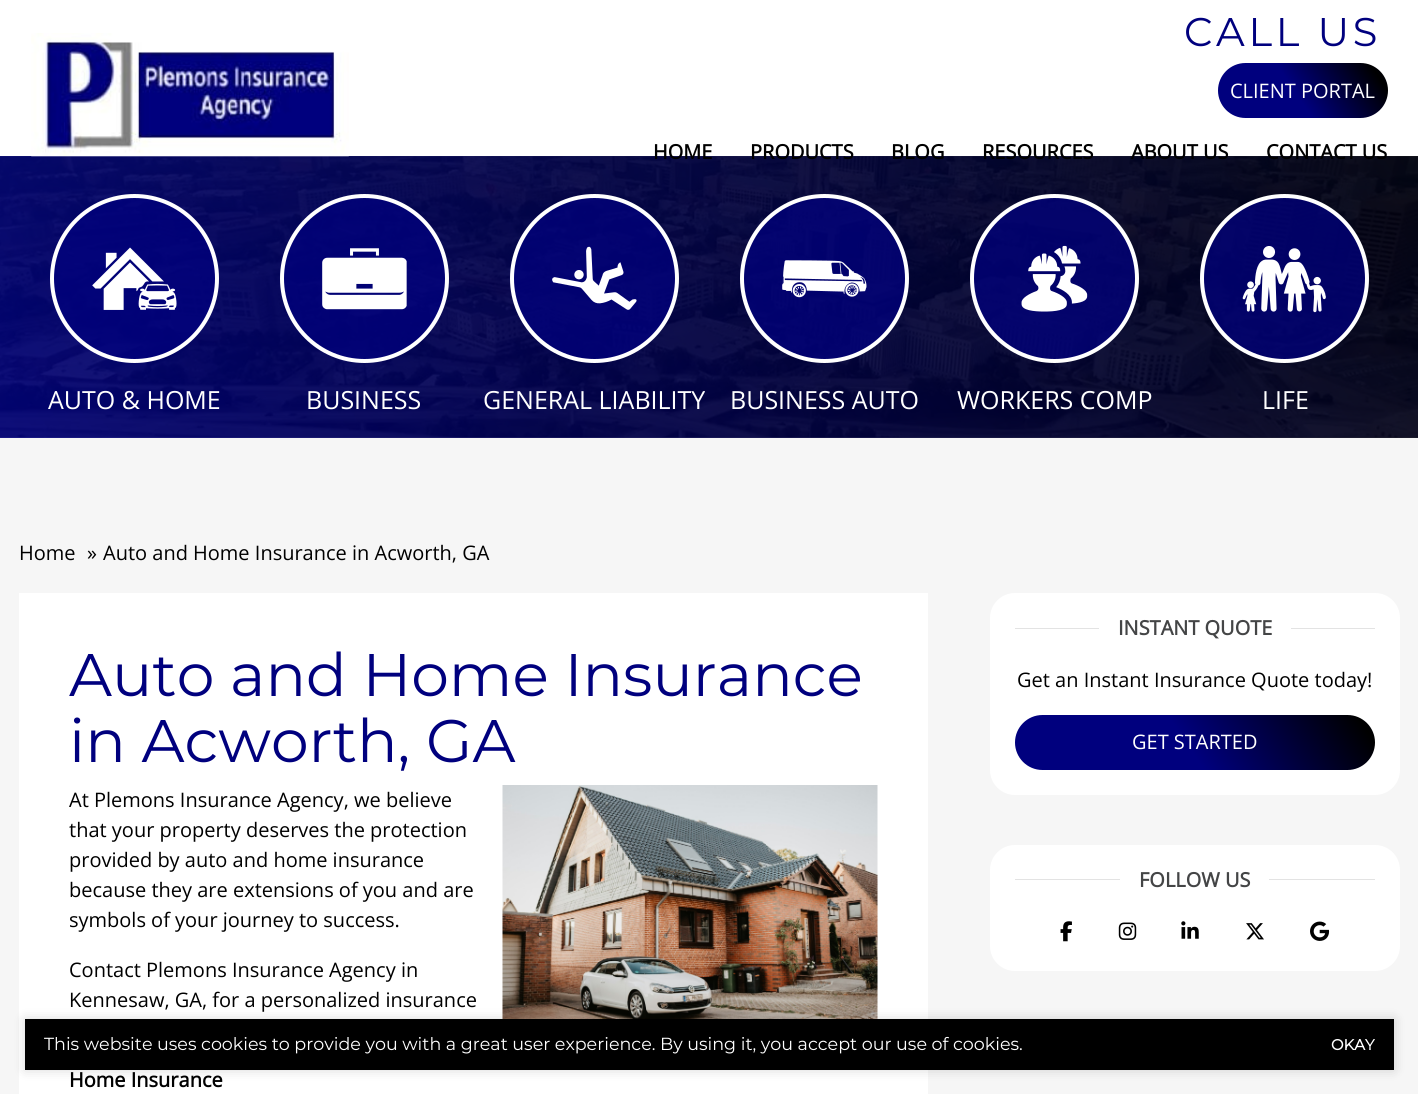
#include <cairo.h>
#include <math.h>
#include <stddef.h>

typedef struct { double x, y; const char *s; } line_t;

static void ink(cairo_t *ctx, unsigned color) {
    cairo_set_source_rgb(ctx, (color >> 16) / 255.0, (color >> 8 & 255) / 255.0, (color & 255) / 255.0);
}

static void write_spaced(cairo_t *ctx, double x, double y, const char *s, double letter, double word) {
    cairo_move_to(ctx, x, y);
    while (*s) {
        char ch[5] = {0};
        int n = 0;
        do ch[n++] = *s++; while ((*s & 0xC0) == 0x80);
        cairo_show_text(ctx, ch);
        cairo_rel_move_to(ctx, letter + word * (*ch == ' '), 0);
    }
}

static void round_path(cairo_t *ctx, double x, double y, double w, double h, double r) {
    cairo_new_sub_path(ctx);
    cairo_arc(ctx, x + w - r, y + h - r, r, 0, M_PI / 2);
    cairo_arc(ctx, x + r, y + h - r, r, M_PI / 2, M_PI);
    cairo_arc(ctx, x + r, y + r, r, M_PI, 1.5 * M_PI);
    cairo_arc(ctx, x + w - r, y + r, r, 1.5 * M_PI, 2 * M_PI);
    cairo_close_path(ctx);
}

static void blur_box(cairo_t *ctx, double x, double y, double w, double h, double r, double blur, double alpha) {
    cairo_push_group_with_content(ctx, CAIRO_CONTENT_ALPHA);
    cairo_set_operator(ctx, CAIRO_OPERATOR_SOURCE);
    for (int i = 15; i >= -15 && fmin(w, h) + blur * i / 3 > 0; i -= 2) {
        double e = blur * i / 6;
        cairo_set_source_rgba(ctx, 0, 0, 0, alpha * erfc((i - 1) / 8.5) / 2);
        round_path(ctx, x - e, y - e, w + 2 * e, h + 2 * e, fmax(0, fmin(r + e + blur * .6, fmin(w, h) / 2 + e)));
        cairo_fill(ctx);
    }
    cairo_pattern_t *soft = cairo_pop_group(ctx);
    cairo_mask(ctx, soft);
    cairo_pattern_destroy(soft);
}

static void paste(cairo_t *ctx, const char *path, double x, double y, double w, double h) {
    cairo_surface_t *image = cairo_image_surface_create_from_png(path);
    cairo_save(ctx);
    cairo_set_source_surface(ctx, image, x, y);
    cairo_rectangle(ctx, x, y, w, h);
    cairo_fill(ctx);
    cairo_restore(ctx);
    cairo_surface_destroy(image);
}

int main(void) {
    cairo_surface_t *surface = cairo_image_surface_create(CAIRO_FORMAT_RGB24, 1418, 1094);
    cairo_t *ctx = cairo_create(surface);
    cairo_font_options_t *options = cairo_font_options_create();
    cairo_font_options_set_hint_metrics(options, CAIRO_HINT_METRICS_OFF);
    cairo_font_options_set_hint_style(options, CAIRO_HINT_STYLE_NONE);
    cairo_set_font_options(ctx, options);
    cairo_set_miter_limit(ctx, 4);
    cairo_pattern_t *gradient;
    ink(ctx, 0xFFFFFF);
    cairo_paint(ctx);
    paste(ctx, "media/2.png", 0, 156, 1418, 282);
    gradient = cairo_pattern_create_linear(157, 670, 1262, -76);
    cairo_pattern_add_color_stop_rgba(gradient, 0, 0, 0, 0.494, 0.85);
    cairo_pattern_add_color_stop_rgba(gradient, 1, 0, 0, 0, 0.85);
    cairo_set_source(ctx, gradient);
    cairo_pattern_destroy(gradient);
    cairo_rectangle(ctx, 0, 156, 1418, 282);
    cairo_fill(ctx);
    paste(ctx, "media/1.png", 31, 33, 318, 124);
    cairo_select_font_face(ctx, "Montserrat Thin", CAIRO_FONT_SLANT_NORMAL, CAIRO_FONT_WEIGHT_NORMAL);
    cairo_set_font_size(ctx, 40);
    ink(ctx, 0x00007E);
    write_spaced(ctx, 1184, 46, "CALL US", 3.75, 0);
    gradient = cairo_pattern_create_linear(1258, 177, 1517, 2.6);
    cairo_pattern_add_color_stop_rgba(gradient, 0.25, 0, 0, 0.494, 1);
    cairo_pattern_add_color_stop_rgba(gradient, 0.5, 0, 0, 0, 1);
    cairo_pattern_add_color_stop_rgba(gradient, 0.9, 0, 0, 0.494, 1);
    cairo_set_source(ctx, gradient);
    cairo_pattern_destroy(gradient);
    round_path(ctx, 1218, 63, 170, 55, 27.5);
    cairo_fill(ctx);
    cairo_select_font_face(ctx, "Open Sans", CAIRO_FONT_SLANT_NORMAL, CAIRO_FONT_WEIGHT_NORMAL);
    cairo_set_font_size(ctx, 20);
    ink(ctx, 0xFFFFFF);
    cairo_move_to(ctx, 1230, 98);
    cairo_show_text(ctx, "CLIENT PORTAL");
    cairo_select_font_face(ctx, "Open Sans", CAIRO_FONT_SLANT_NORMAL, CAIRO_FONT_WEIGHT_BOLD);
    ink(ctx, 0x000000);
    {
        static const line_t items[] = {
            {653, 159, "HOME"},
            {750, 159, "PRODUCTS"},
            {891, 159, "BLOG"},
            {982, 159, "RESOURCES"},
            {1131, 159, "ABOUT US"},
            {1266, 159, "CONTACT US"},
        };
        for (size_t i = 0; i < sizeof items / sizeof *items; i++) {
            cairo_move_to(ctx, items[i].x, items[i].y);
            cairo_show_text(ctx, items[i].s);
        }
    }
    cairo_set_source_rgba(ctx, 0, 0, 0.494, 0.75);
    cairo_new_path(ctx);
    cairo_arc(ctx, 134.5, 278.5, 82.5, 0, 2 * M_PI);
    cairo_fill_preserve(ctx);
    ink(ctx, 0xFFFFFF);
    cairo_set_line_width(ctx, 4);
    cairo_stroke(ctx);
    paste(ctx, "media/3.png", 92, 247, 85, 63);
    cairo_select_font_face(ctx, "Open Sans", CAIRO_FONT_SLANT_NORMAL, CAIRO_FONT_WEIGHT_NORMAL);
    cairo_set_font_size(ctx, 25);
    cairo_move_to(ctx, 48, 409);
    cairo_show_text(ctx, "AUTO & HOME");
    cairo_set_source_rgba(ctx, 0, 0, 0.494, 0.75);
    cairo_new_path(ctx);
    cairo_arc(ctx, 364.5, 278.5, 82.5, 0, 2 * M_PI);
    cairo_fill_preserve(ctx);
    ink(ctx, 0xFFFFFF);
    cairo_stroke(ctx);
    paste(ctx, "media/4.png", 322, 248, 85, 62);
    cairo_move_to(ctx, 306, 409);
    cairo_show_text(ctx, "BUSINESS");
    cairo_set_source_rgba(ctx, 0, 0, 0.494, 0.75);
    cairo_new_path(ctx);
    cairo_arc(ctx, 594.5, 278.5, 82.5, 0, 2 * M_PI);
    cairo_fill_preserve(ctx);
    ink(ctx, 0xFFFFFF);
    cairo_stroke(ctx);
    paste(ctx, "media/5.png", 552, 246, 85, 64);
    cairo_move_to(ctx, 483, 409);
    cairo_show_text(ctx, "GENERAL LIABILITY");
    cairo_set_source_rgba(ctx, 0, 0, 0.494, 0.75);
    cairo_new_path(ctx);
    cairo_arc(ctx, 824.5, 278.5, 82.5, 0, 2 * M_PI);
    cairo_fill_preserve(ctx);
    ink(ctx, 0xFFFFFF);
    cairo_stroke(ctx);
    paste(ctx, "media/6.png", 782, 260, 85, 38);
    cairo_move_to(ctx, 730, 409);
    cairo_show_text(ctx, "BUSINESS AUTO");
    cairo_set_source_rgba(ctx, 0, 0, 0.494, 0.75);
    cairo_new_path(ctx);
    cairo_arc(ctx, 1054.5, 278.5, 82.5, 0, 2 * M_PI);
    cairo_fill_preserve(ctx);
    ink(ctx, 0xFFFFFF);
    cairo_stroke(ctx);
    paste(ctx, "media/7.png", 1021, 245, 67, 67);
    cairo_move_to(ctx, 957, 409);
    cairo_show_text(ctx, "WORKERS COMP");
    cairo_set_source_rgba(ctx, 0, 0, 0.494, 0.75);
    cairo_new_path(ctx);
    cairo_arc(ctx, 1284.5, 278.5, 82.5, 0, 2 * M_PI);
    cairo_fill_preserve(ctx);
    ink(ctx, 0xFFFFFF);
    cairo_stroke(ctx);
    paste(ctx, "media/8.png", 1242, 246, 84, 67);
    cairo_move_to(ctx, 1262, 409);
    cairo_show_text(ctx, "LIFE");
    ink(ctx, 0xF6F6F6);
    cairo_rectangle(ctx, 0, 438, 1418, 656);
    cairo_fill(ctx);
    cairo_set_font_size(ctx, 20);
    ink(ctx, 0x000000);
    {
        static const line_t items[] = {
            {19, 560, "Home"},
            {87, 560, "»"},
            {103, 560, "Auto and Home Insurance in Acworth, GA"},
        };
        for (size_t i = 0; i < sizeof items / sizeof *items; i++) {
            cairo_move_to(ctx, items[i].x, items[i].y);
            cairo_show_text(ctx, items[i].s);
        }
    }
    ink(ctx, 0xFFFFFF);
    cairo_rectangle(ctx, 19, 593, 909, 501);
    cairo_fill(ctx);
    cairo_select_font_face(ctx, "Montserrat Thin", CAIRO_FONT_SLANT_NORMAL, CAIRO_FONT_WEIGHT_NORMAL);
    cairo_set_font_size(ctx, 60);
    ink(ctx, 0x00007E);
    cairo_move_to(ctx, 69, 696);
    cairo_show_text(ctx, "Auto and Home Insurance");
    cairo_move_to(ctx, 69, 762);
    cairo_show_text(ctx, "in Acworth, GA");
    cairo_select_font_face(ctx, "Open Sans", CAIRO_FONT_SLANT_NORMAL, CAIRO_FONT_WEIGHT_NORMAL);
    cairo_set_font_size(ctx, 20);
    ink(ctx, 0x000000);
    cairo_move_to(ctx, 69, 807);
    cairo_show_text(ctx, "At Plemons Insurance Agency, we believe");
    paste(ctx, "media/9.png", 502, 785, 376, 234);
    {
        static const line_t items[] = {
            {69, 837, "that your property deserves the protection"},
            {69, 867, "provided by auto and home insurance"},
            {69, 897, "because they are extensions of you and are"},
            {69, 927, "symbols of your journey to success."},
            {69, 977, "Contact Plemons Insurance Agency in"},
            {69, 1007, "Kennesaw, GA, for a personalized insurance"},
        };
        for (size_t i = 0; i < sizeof items / sizeof *items; i++) {
            cairo_move_to(ctx, items[i].x, items[i].y);
            cairo_show_text(ctx, items[i].s);
        }
    }
    cairo_select_font_face(ctx, "Open Sans", CAIRO_FONT_SLANT_NORMAL, CAIRO_FONT_WEIGHT_BOLD);
    cairo_move_to(ctx, 69, 1087);
    cairo_show_text(ctx, "Home Insurance");
    ink(ctx, 0xFFFFFF);
    round_path(ctx, 990, 593, 410, 202, 25);
    cairo_fill(ctx);
    ink(ctx, 0xE3E3E3);
    cairo_rectangle(ctx, 1015, 628, 360, 1);
    cairo_fill(ctx);
    ink(ctx, 0xFFFFFF);
    cairo_rectangle(ctx, 1099, 628, 192, 1);
    cairo_fill(ctx);
    ink(ctx, 0x444546);
    cairo_move_to(ctx, 1118, 635);
    cairo_show_text(ctx, "INSTANT QUOTE");
    cairo_select_font_face(ctx, "Open Sans", CAIRO_FONT_SLANT_NORMAL, CAIRO_FONT_WEIGHT_NORMAL);
    ink(ctx, 0x000000);
    cairo_move_to(ctx, 1017, 687);
    cairo_show_text(ctx, "Get an Instant Insurance Quote today!");
    gradient = cairo_pattern_create_linear(1115, 918, 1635, 567);
    cairo_pattern_add_color_stop_rgba(gradient, 0.25, 0, 0, 0.494, 1);
    cairo_pattern_add_color_stop_rgba(gradient, 0.5, 0, 0, 0, 1);
    cairo_pattern_add_color_stop_rgba(gradient, 0.9, 0, 0, 0.494, 1);
    cairo_set_source(ctx, gradient);
    cairo_pattern_destroy(gradient);
    round_path(ctx, 1015, 715, 360, 55, 27.5);
    cairo_fill(ctx);
    ink(ctx, 0xFFFFFF);
    cairo_move_to(ctx, 1132, 749);
    cairo_show_text(ctx, "GET STARTED");
    round_path(ctx, 990, 845, 410, 126, 25);
    cairo_fill(ctx);
    ink(ctx, 0xE3E3E3);
    cairo_rectangle(ctx, 1015, 879, 360, 1);
    cairo_fill(ctx);
    ink(ctx, 0xFFFFFF);
    cairo_rectangle(ctx, 1120, 879, 149, 1);
    cairo_fill(ctx);
    cairo_select_font_face(ctx, "Open Sans", CAIRO_FONT_SLANT_NORMAL, CAIRO_FONT_WEIGHT_BOLD);
    ink(ctx, 0x444546);
    cairo_move_to(ctx, 1139, 887);
    cairo_show_text(ctx, "FOLLOW US");
    paste(ctx, "media/10.png", 1060, 921, 12, 21);
    paste(ctx, "media/11.png", 1118, 922, 19, 18);
    paste(ctx, "media/12.png", 1181, 921, 18, 18);
    paste(ctx, "media/13.png", 1246, 923, 18, 17);
    paste(ctx, "media/14.png", 1310, 921, 20, 20);
    ink(ctx, 0x000000);
    blur_box(ctx, 25, 1019, 1369, 51, 0, 6, 0.15);
    ink(ctx, 0x000000);
    cairo_rectangle(ctx, 25, 1019, 1369, 51);
    cairo_fill(ctx);
    cairo_select_font_face(ctx, "Montserrat Thin", CAIRO_FONT_SLANT_NORMAL, CAIRO_FONT_WEIGHT_NORMAL);
    cairo_set_font_size(ctx, 17.5);
    ink(ctx, 0xFFFFFF);
    cairo_move_to(ctx, 44, 1050);
    cairo_show_text(ctx, "This website uses cookies to provide you with a great user experience. By using it, you accept our use of cookies.");
    cairo_select_font_face(ctx, "Montserrat", CAIRO_FONT_SLANT_NORMAL, CAIRO_FONT_WEIGHT_BOLD);
    cairo_set_font_size(ctx, 15);
    cairo_move_to(ctx, 1331, 1050);
    cairo_show_text(ctx, "OKAY");
    cairo_surface_write_to_png(surface, "image.png");
    cairo_font_options_destroy(options);
    cairo_destroy(ctx);
    cairo_surface_destroy(surface);
    return 0;
}
